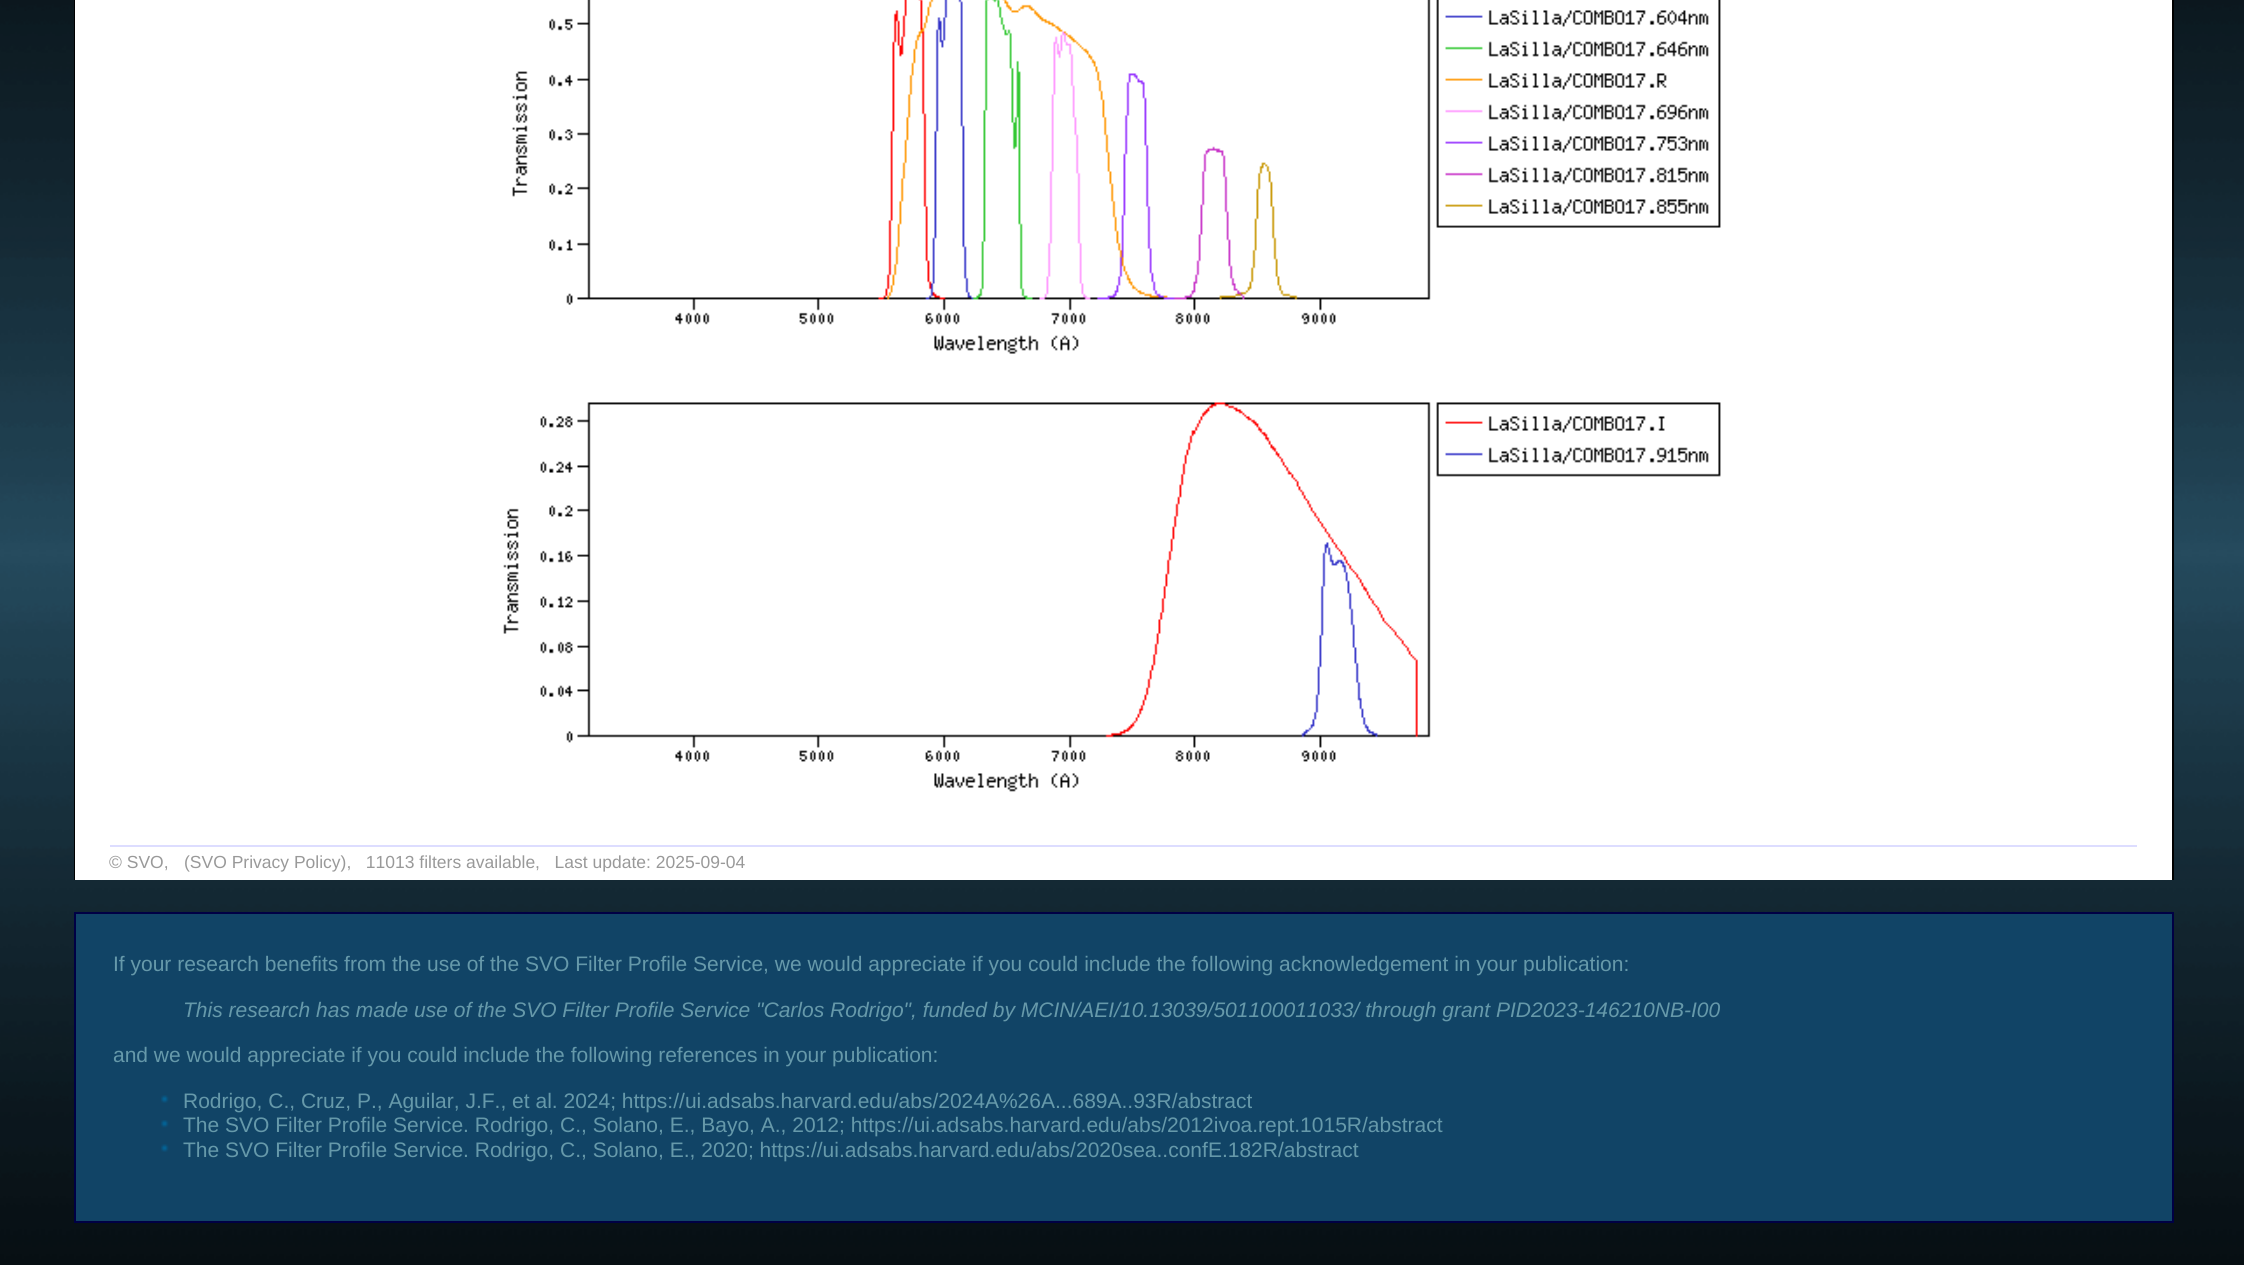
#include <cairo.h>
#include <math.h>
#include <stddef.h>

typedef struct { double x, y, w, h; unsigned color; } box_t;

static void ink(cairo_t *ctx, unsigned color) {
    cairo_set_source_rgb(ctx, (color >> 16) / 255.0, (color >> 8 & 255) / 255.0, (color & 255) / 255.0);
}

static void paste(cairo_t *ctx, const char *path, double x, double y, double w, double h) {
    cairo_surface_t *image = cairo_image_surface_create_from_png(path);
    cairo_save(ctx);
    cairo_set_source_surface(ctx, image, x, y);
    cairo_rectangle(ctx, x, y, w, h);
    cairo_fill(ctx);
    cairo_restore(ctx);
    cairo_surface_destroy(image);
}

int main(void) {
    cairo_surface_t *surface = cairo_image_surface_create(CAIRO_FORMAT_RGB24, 2244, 1265);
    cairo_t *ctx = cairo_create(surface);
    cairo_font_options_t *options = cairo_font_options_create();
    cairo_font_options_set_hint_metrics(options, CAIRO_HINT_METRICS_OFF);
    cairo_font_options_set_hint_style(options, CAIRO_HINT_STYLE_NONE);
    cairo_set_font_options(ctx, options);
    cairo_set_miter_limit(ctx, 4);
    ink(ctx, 0xFFFFFF);
    cairo_paint(ctx);
    paste(ctx, "media/1.png", 0, 0, 2244, 1265);
    {
        static const box_t items[] = {
            {74, 0, 1, 880, 0x000000},
            {2172, 0, 2, 880, 0x000000},
            {75, 0, 2097, 880, 0xFFFFFF},
        };
        for (size_t i = 0; i < sizeof items / sizeof *items; i++) {
            ink(ctx, items[i].color);
            cairo_rectangle(ctx, items[i].x, items[i].y, items[i].w, items[i].h);
            cairo_fill(ctx);
        }
    }
    paste(ctx, "media/2.png", 512, 0, 1209, 354);
    paste(ctx, "media/3.png", 503, 402, 1218, 390);
    ink(ctx, 0xDDDDFF);
    cairo_rectangle(ctx, 110, 845, 2027, 2);
    cairo_fill(ctx);
    cairo_select_font_face(ctx, "Liberation Sans", CAIRO_FONT_SLANT_NORMAL, CAIRO_FONT_WEIGHT_NORMAL);
    cairo_set_font_size(ctx, 17.5);
    ink(ctx, 0x999999);
    cairo_move_to(ctx, 109, 868);
    cairo_show_text(ctx, "© SVO,");
    cairo_move_to(ctx, 184, 868);
    cairo_show_text(ctx, "(SVO Privacy Policy),   11013 filters available,   Last update: 2025-09-04");
    ink(ctx, 0x114466);
    cairo_rectangle(ctx, 75, 913, 2098, 309);
    cairo_fill_preserve(ctx);
    ink(ctx, 0x000044);
    cairo_stroke(ctx);
    cairo_set_font_size(ctx, 21);
    ink(ctx, 0x6699AA);
    cairo_move_to(ctx, 113, 971);
    cairo_show_text(ctx, "If your research benefits from the use of the SVO Filter Profile Service, we would appreciate if you could include the following acknowledgement in your publication:");
    cairo_select_font_face(ctx, "Liberation Sans", CAIRO_FONT_SLANT_ITALIC, CAIRO_FONT_WEIGHT_NORMAL);
    cairo_move_to(ctx, 183, 1017);
    cairo_show_text(ctx, "This research has made use of the SVO Filter Profile Service \"Carlos Rodrigo\", funded by MCIN/AEI/10.13039/501100011033/ through grant PID2023-146210NB-I00");
    cairo_select_font_face(ctx, "Liberation Sans", CAIRO_FONT_SLANT_NORMAL, CAIRO_FONT_WEIGHT_NORMAL);
    cairo_move_to(ctx, 113, 1062);
    cairo_show_text(ctx, "and we would appreciate if you could include the following references in your publication:");
    paste(ctx, "media/4.png", 161, 1095, 8, 8);
    cairo_move_to(ctx, 183, 1108);
    cairo_show_text(ctx, "Rodrigo, C., Cruz, P., Aguilar, J.F., et al. 2024; https://ui.adsabs.harvard.edu/abs/2024A%26A...689A..93R/abstract");
    paste(ctx, "media/5.png", 161, 1120, 8, 8);
    cairo_move_to(ctx, 183, 1132);
    cairo_show_text(ctx, "The SVO Filter Profile Service. Rodrigo, C., Solano, E., Bayo, A., 2012; https://ui.adsabs.harvard.edu/abs/2012ivoa.rept.1015R/abstract");
    paste(ctx, "media/4.png", 161, 1144, 8, 8);
    cairo_move_to(ctx, 183, 1157);
    cairo_show_text(ctx, "The SVO Filter Profile Service. Rodrigo, C., Solano, E., 2020; https://ui.adsabs.harvard.edu/abs/2020sea..confE.182R/abstract");
    cairo_surface_write_to_png(surface, "image.png");
    cairo_font_options_destroy(options);
    cairo_destroy(ctx);
    cairo_surface_destroy(surface);
    return 0;
}
